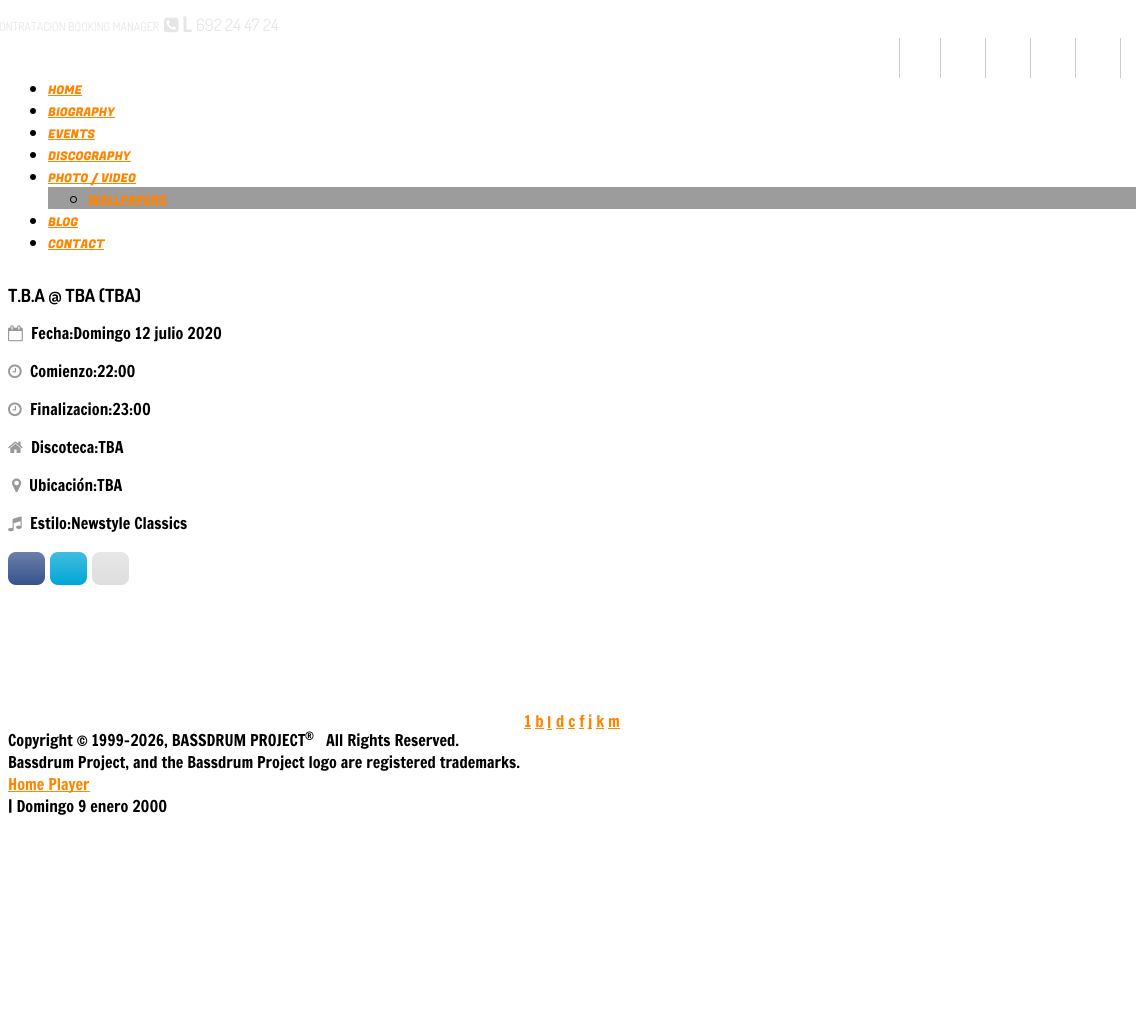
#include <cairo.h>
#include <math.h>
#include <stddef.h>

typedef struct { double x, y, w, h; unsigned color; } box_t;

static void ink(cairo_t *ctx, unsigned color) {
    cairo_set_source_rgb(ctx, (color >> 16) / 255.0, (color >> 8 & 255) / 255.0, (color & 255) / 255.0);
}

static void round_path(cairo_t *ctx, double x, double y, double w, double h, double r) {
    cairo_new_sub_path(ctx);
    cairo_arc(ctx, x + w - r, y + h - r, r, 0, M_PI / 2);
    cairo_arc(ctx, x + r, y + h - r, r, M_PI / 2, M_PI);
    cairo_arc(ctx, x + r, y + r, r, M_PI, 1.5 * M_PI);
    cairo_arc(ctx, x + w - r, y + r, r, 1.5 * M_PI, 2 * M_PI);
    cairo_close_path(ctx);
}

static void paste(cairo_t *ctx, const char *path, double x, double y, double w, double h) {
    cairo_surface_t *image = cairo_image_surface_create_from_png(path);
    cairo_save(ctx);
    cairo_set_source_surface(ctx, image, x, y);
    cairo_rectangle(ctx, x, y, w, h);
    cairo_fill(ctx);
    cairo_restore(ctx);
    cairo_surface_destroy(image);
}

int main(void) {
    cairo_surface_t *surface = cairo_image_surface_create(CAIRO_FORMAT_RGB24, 1144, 1017);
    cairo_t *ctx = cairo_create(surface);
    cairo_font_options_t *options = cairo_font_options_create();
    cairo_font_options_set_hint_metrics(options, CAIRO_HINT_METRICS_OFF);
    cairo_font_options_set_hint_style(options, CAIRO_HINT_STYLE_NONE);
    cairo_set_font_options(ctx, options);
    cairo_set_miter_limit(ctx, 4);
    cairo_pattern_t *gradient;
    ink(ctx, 0xFFFFFF);
    cairo_paint(ctx);
    cairo_select_font_face(ctx, "Dosis", CAIRO_FONT_SLANT_NORMAL, CAIRO_FONT_WEIGHT_NORMAL);
    cairo_set_font_size(ctx, 12);
    ink(ctx, 0xE6E6E6);
    cairo_move_to(ctx, -1, 31);
    cairo_show_text(ctx, "ONTRATACION BOOKING MANAGER");
    paste(ctx, "media/1.png", 164, 17, 15, 16);
    cairo_select_font_face(ctx, "Francois One", CAIRO_FONT_SLANT_NORMAL, CAIRO_FONT_WEIGHT_NORMAL);
    cairo_set_font_size(ctx, 21);
    cairo_move_to(ctx, 182, 32);
    cairo_show_text(ctx, "L");
    cairo_select_font_face(ctx, "Dosis", CAIRO_FONT_SLANT_NORMAL, CAIRO_FONT_WEIGHT_NORMAL);
    cairo_set_font_size(ctx, 17);
    cairo_move_to(ctx, 196, 31);
    cairo_show_text(ctx, "692 24 47 24");
    {
        static const box_t items[] = {
            {940, 38, 1, 40, 0xCCCCCC},
            {899, 38, 1, 40, 0xCCCCCC},
            {985, 38, 1, 40, 0xCCCCCC},
            {1030, 38, 1, 40, 0xCCCCCC},
            {1075, 38, 1, 40, 0xCCCCCC},
            {1120, 38, 1, 40, 0xCCCCCC},
        };
        for (size_t i = 0; i < sizeof items / sizeof *items; i++) {
            ink(ctx, items[i].color);
            cairo_rectangle(ctx, items[i].x, items[i].y, items[i].w, items[i].h);
            cairo_fill(ctx);
        }
    }
    ink(ctx, 0x000000);
    cairo_new_path(ctx);
    cairo_arc(ctx, 33, 89, 3, 0, 2 * M_PI);
    cairo_fill(ctx);
    cairo_select_font_face(ctx, "Fugaz One", CAIRO_FONT_SLANT_NORMAL, CAIRO_FONT_WEIGHT_NORMAL);
    cairo_set_font_size(ctx, 12);
    ink(ctx, 0xFF8400);
    cairo_move_to(ctx, 48, 94);
    cairo_show_text(ctx, "HOME");
    cairo_rectangle(ctx, 48, 95, 34, 1);
    cairo_fill(ctx);
    ink(ctx, 0x000000);
    cairo_arc(ctx, 33, 111, 3, 0, 2 * M_PI);
    cairo_fill(ctx);
    ink(ctx, 0xFF8400);
    cairo_move_to(ctx, 48, 116);
    cairo_show_text(ctx, "BIOGRAPHY");
    cairo_rectangle(ctx, 48, 117, 67, 1);
    cairo_fill(ctx);
    ink(ctx, 0x000000);
    cairo_arc(ctx, 33, 133, 3, 0, 2 * M_PI);
    cairo_fill(ctx);
    ink(ctx, 0xFF8400);
    cairo_move_to(ctx, 48, 138);
    cairo_show_text(ctx, "EVENTS");
    cairo_rectangle(ctx, 48, 139, 47, 1);
    cairo_fill(ctx);
    ink(ctx, 0x000000);
    cairo_arc(ctx, 33, 155, 3, 0, 2 * M_PI);
    cairo_fill(ctx);
    ink(ctx, 0xFF8400);
    cairo_move_to(ctx, 48, 160);
    cairo_show_text(ctx, "DISCOGRAPHY");
    cairo_rectangle(ctx, 48, 161, 83, 1);
    cairo_fill(ctx);
    ink(ctx, 0x000000);
    cairo_arc(ctx, 33, 177, 3, 0, 2 * M_PI);
    cairo_fill(ctx);
    ink(ctx, 0xFF8400);
    cairo_rectangle(ctx, 48, 183, 88, 1);
    cairo_fill(ctx);
    cairo_move_to(ctx, 48, 182);
    cairo_show_text(ctx, "PHOTO / VIDEO");
    ink(ctx, 0x9C9C9C);
    cairo_rectangle(ctx, 48, 187, 1088, 22);
    cairo_fill(ctx);
    cairo_arc(ctx, 73.5, 199.5, 3, 0, 2 * M_PI);
    ink(ctx, 0x000000);
    cairo_set_line_width(ctx, 1);
    cairo_stroke(ctx);
    ink(ctx, 0xFF8400);
    cairo_move_to(ctx, 88, 204);
    cairo_show_text(ctx, "WALLPAPERS");
    cairo_rectangle(ctx, 88, 205, 79, 1);
    cairo_fill(ctx);
    ink(ctx, 0x000000);
    cairo_arc(ctx, 33, 221, 3, 0, 2 * M_PI);
    cairo_fill(ctx);
    ink(ctx, 0xFF8400);
    cairo_move_to(ctx, 48, 226);
    cairo_show_text(ctx, "BLOG");
    cairo_rectangle(ctx, 48, 227, 30, 1);
    cairo_fill(ctx);
    ink(ctx, 0x000000);
    cairo_arc(ctx, 33, 243, 3, 0, 2 * M_PI);
    cairo_fill(ctx);
    ink(ctx, 0xFF8400);
    cairo_move_to(ctx, 48, 248);
    cairo_show_text(ctx, "CONTACT");
    cairo_rectangle(ctx, 48, 249, 56, 1);
    cairo_fill(ctx);
    cairo_select_font_face(ctx, "Dosis", CAIRO_FONT_SLANT_NORMAL, CAIRO_FONT_WEIGHT_BOLD);
    cairo_set_font_size(ctx, 18);
    ink(ctx, 0x000000);
    cairo_move_to(ctx, 8, 302);
    cairo_show_text(ctx, "T.B.A @ TBA (TBA)");
    paste(ctx, "media/2.png", 8, 325, 15, 17);
    cairo_select_font_face(ctx, "Francois One", CAIRO_FONT_SLANT_NORMAL, CAIRO_FONT_WEIGHT_NORMAL);
    cairo_set_font_size(ctx, 16);
    cairo_move_to(ctx, 31, 339);
    cairo_show_text(ctx, "Fecha:Domingo 12 julio 2020");
    paste(ctx, "media/3.png", 8, 364, 14, 15);
    cairo_move_to(ctx, 30, 377);
    cairo_show_text(ctx, "Comienzo:22:00");
    paste(ctx, "media/3.png", 8, 402, 14, 15);
    cairo_move_to(ctx, 30, 415);
    cairo_show_text(ctx, "Finalizacion:23:00");
    paste(ctx, "media/4.png", 8, 441, 15, 12);
    cairo_move_to(ctx, 31, 453);
    cairo_show_text(ctx, "Discoteca:TBA");
    paste(ctx, "media/5.png", 12, 478, 10, 15);
    cairo_move_to(ctx, 29, 491);
    cairo_show_text(ctx, "Ubicación:TBA");
    paste(ctx, "media/6.png", 8, 516, 14, 16);
    cairo_move_to(ctx, 30, 529);
    cairo_show_text(ctx, "Estilo:Newstyle Classics");
    ink(ctx, 0x37538D);
    round_path(ctx, 8, 552, 37, 33, 8);
    cairo_fill(ctx);
    gradient = cairo_pattern_create_linear(27, 585, 27, 552);
    cairo_pattern_add_color_stop_rgba(gradient, 0, 1, 1, 1, 0);
    cairo_pattern_add_color_stop_rgba(gradient, 1, 1, 1, 1, 0.26);
    cairo_set_source(ctx, gradient);
    cairo_pattern_destroy(gradient);
    round_path(ctx, 8, 552, 37, 33, 8);
    cairo_fill(ctx);
    ink(ctx, 0x00A6D4);
    round_path(ctx, 50, 552, 37, 33, 8);
    cairo_fill(ctx);
    gradient = cairo_pattern_create_linear(69, 585, 69, 552);
    cairo_pattern_add_color_stop_rgba(gradient, 0, 1, 1, 1, 0);
    cairo_pattern_add_color_stop_rgba(gradient, 1, 1, 1, 1, 0.26);
    cairo_set_source(ctx, gradient);
    cairo_pattern_destroy(gradient);
    round_path(ctx, 50, 552, 37, 33, 8);
    cairo_fill(ctx);
    ink(ctx, 0xDEDEDE);
    round_path(ctx, 92, 552, 37, 33, 8);
    cairo_fill(ctx);
    gradient = cairo_pattern_create_linear(111, 585, 111, 552);
    cairo_pattern_add_color_stop_rgba(gradient, 0, 1, 1, 1, 0);
    cairo_pattern_add_color_stop_rgba(gradient, 1, 1, 1, 1, 0.26);
    cairo_set_source(ctx, gradient);
    cairo_pattern_destroy(gradient);
    round_path(ctx, 92, 552, 37, 33, 8);
    cairo_fill(ctx);
    ink(ctx, 0xFF8400);
    cairo_move_to(ctx, 524, 727);
    cairo_show_text(ctx, "1 b");
    ink(ctx, 0xFF8800);
    cairo_rectangle(ctx, 524, 728, 7, 1);
    cairo_fill(ctx);
    ink(ctx, 0xFF8400);
    cairo_move_to(ctx, 547, 728);
    cairo_show_text(ctx, "l");
    ink(ctx, 0xFF8800);
    cairo_rectangle(ctx, 547, 729, 5, 1);
    cairo_fill(ctx);
    ink(ctx, 0xFF8400);
    cairo_move_to(ctx, 556, 727);
    cairo_show_text(ctx, "d c f");
    ink(ctx, 0xFF8800);
    cairo_rectangle(ctx, 556, 728, 8, 1);
    cairo_fill(ctx);
    cairo_rectangle(ctx, 588, 728, 4, 1);
    cairo_fill(ctx);
    ink(ctx, 0xFF8400);
    cairo_move_to(ctx, 588, 727);
    cairo_show_text(ctx, "j k m");
    {
        static const box_t items[] = {
            {535, 728, 9, 1, 0xFF8800},
            {568, 728, 7, 1, 0xFF8800},
            {579, 728, 5, 1, 0xFF8800},
            {596, 728, 8, 1, 0xFF8800},
            {608, 728, 12, 1, 0xFF8800},
        };
        for (size_t i = 0; i < sizeof items / sizeof *items; i++) {
            ink(ctx, items[i].color);
            cairo_rectangle(ctx, items[i].x, items[i].y, items[i].w, items[i].h);
            cairo_fill(ctx);
        }
    }
    ink(ctx, 0x000000);
    cairo_move_to(ctx, 8, 746);
    cairo_show_text(ctx, "Copyright © 1999-2026, BASSDRUM PROJECT");
    cairo_set_font_size(ctx, 13);
    cairo_move_to(ctx, 305, 740);
    cairo_show_text(ctx, "®");
    cairo_set_font_size(ctx, 16);
    cairo_move_to(ctx, 326, 746);
    cairo_show_text(ctx, "All Rights Reserved.");
    cairo_move_to(ctx, 8, 768);
    cairo_show_text(ctx, "Bassdrum Project, and the Bassdrum Project logo are registered trademarks.");
    ink(ctx, 0xFF8800);
    cairo_rectangle(ctx, 8, 791, 82, 1);
    cairo_fill(ctx);
    ink(ctx, 0xFF8400);
    cairo_move_to(ctx, 8, 790);
    cairo_show_text(ctx, "Home Player");
    ink(ctx, 0x000000);
    cairo_move_to(ctx, 8, 812);
    cairo_show_text(ctx, "| Domingo 9 enero 2000");
    cairo_surface_write_to_png(surface, "image.png");
    cairo_font_options_destroy(options);
    cairo_destroy(ctx);
    cairo_surface_destroy(surface);
    return 0;
}
